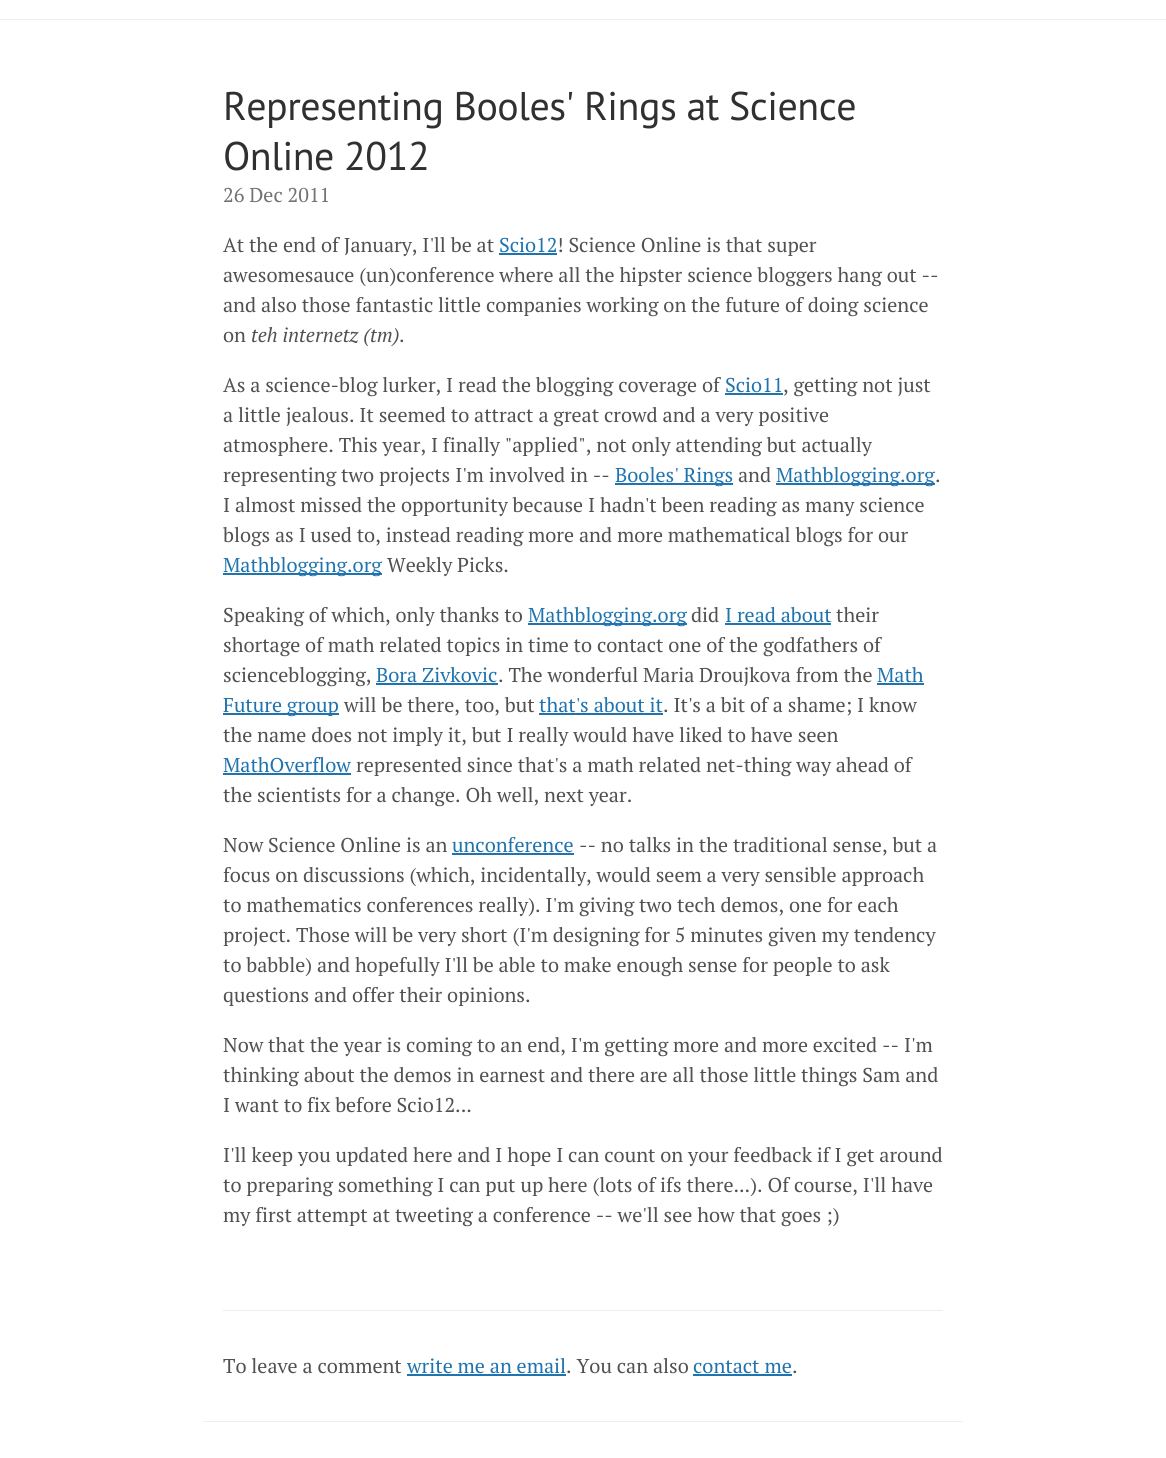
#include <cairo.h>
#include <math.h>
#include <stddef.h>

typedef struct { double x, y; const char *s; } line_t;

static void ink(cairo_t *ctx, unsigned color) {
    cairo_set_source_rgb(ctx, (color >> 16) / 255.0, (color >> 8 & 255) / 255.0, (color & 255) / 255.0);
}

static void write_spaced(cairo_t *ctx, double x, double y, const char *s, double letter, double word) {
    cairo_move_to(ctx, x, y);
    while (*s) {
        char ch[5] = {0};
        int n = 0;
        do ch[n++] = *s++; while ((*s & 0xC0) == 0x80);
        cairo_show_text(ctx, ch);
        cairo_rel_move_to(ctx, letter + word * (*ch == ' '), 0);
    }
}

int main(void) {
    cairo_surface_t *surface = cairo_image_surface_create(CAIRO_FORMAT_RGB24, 1166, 1458);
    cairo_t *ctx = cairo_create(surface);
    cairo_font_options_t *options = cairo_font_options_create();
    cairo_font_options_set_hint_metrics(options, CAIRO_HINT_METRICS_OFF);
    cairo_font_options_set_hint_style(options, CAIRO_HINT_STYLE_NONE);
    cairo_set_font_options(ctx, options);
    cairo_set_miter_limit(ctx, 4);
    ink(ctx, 0xFFFFFF);
    cairo_paint(ctx);
    ink(ctx, 0xEEEEEE);
    cairo_rectangle(ctx, 0, 19, 1166, 1);
    cairo_fill(ctx);
    cairo_select_font_face(ctx, "PT Sans", CAIRO_FONT_SLANT_NORMAL, CAIRO_FONT_WEIGHT_NORMAL);
    cairo_set_font_size(ctx, 40);
    ink(ctx, 0x303030);
    write_spaced(ctx, 223, 120, "Representing Booles' Rings at Science", -0.5, 0);
    write_spaced(ctx, 223, 170, "Online 2012", -0.5, 0);
    cairo_select_font_face(ctx, "PT Serif", CAIRO_FONT_SLANT_NORMAL, CAIRO_FONT_WEIGHT_NORMAL);
    cairo_set_font_size(ctx, 20);
    ink(ctx, 0x737373);
    cairo_move_to(ctx, 223, 202);
    cairo_show_text(ctx, "26 Dec 2011");
    ink(ctx, 0x515151);
    cairo_move_to(ctx, 223, 252);
    cairo_show_text(ctx, "At the end of January, I'll be at");
    ink(ctx, 0x1F73AE);
    cairo_move_to(ctx, 499, 252);
    cairo_show_text(ctx, "Scio12");
    cairo_rectangle(ctx, 499, 253, 58, 2);
    cairo_fill(ctx);
    ink(ctx, 0x515151);
    {
        static const line_t items[] = {
            {557, 252, "! Science Online is that super"},
            {223, 282, "awesomesauce (un)conference where all the hipster science bloggers hang out --"},
            {223, 312, "and also those fantastic little companies working on the future of doing science"},
            {223, 342, "on"},
        };
        for (size_t i = 0; i < sizeof items / sizeof *items; i++) {
            cairo_move_to(ctx, items[i].x, items[i].y);
            cairo_show_text(ctx, items[i].s);
        }
    }
    cairo_select_font_face(ctx, "PT Serif", CAIRO_FONT_SLANT_ITALIC, CAIRO_FONT_WEIGHT_NORMAL);
    cairo_move_to(ctx, 251, 342);
    cairo_show_text(ctx, "teh internetz (tm)");
    cairo_select_font_face(ctx, "PT Serif", CAIRO_FONT_SLANT_NORMAL, CAIRO_FONT_WEIGHT_NORMAL);
    cairo_move_to(ctx, 399, 342);
    cairo_show_text(ctx, ".");
    cairo_move_to(ctx, 223, 392);
    cairo_show_text(ctx, "As a science-blog lurker, I read the blogging coverage of");
    ink(ctx, 0x1F73AE);
    cairo_move_to(ctx, 725, 392);
    cairo_show_text(ctx, "Scio11");
    cairo_rectangle(ctx, 725, 393, 58, 2);
    cairo_fill(ctx);
    ink(ctx, 0x515151);
    {
        static const line_t items[] = {
            {783, 392, ", getting not just"},
            {223, 422, "a little jealous. It seemed to attract a great crowd and a very positive"},
            {223, 452, "atmosphere. This year, I finally \"applied\", not only attending but actually"},
            {223, 482, "representing two projects I'm involved in --"},
        };
        for (size_t i = 0; i < sizeof items / sizeof *items; i++) {
            cairo_move_to(ctx, items[i].x, items[i].y);
            cairo_show_text(ctx, items[i].s);
        }
    }
    ink(ctx, 0x1F73AE);
    cairo_rectangle(ctx, 615, 483, 118, 2);
    cairo_fill(ctx);
    cairo_move_to(ctx, 615, 482);
    cairo_show_text(ctx, "Booles' Rings");
    ink(ctx, 0x515151);
    cairo_move_to(ctx, 738, 482);
    cairo_show_text(ctx, "and");
    ink(ctx, 0x1F73AE);
    cairo_rectangle(ctx, 776, 483, 159, 2);
    cairo_fill(ctx);
    cairo_move_to(ctx, 776, 482);
    cairo_show_text(ctx, "Mathblogging.org");
    ink(ctx, 0x515151);
    {
        static const line_t items[] = {
            {935, 482, "."},
            {223, 512, "I almost missed the opportunity because I hadn't been reading as many science"},
            {223, 542, "blogs as I used to, instead reading more and more mathematical blogs for our"},
        };
        for (size_t i = 0; i < sizeof items / sizeof *items; i++) {
            cairo_move_to(ctx, items[i].x, items[i].y);
            cairo_show_text(ctx, items[i].s);
        }
    }
    ink(ctx, 0x1F73AE);
    cairo_rectangle(ctx, 223, 573, 159, 2);
    cairo_fill(ctx);
    cairo_move_to(ctx, 223, 572);
    cairo_show_text(ctx, "Mathblogging.org");
    ink(ctx, 0x515151);
    cairo_move_to(ctx, 387, 572);
    cairo_show_text(ctx, "Weekly Picks.");
    cairo_move_to(ctx, 223, 622);
    cairo_show_text(ctx, "Speaking of which, only thanks to");
    ink(ctx, 0x1F73AE);
    cairo_rectangle(ctx, 528, 623, 159, 2);
    cairo_fill(ctx);
    cairo_move_to(ctx, 528, 622);
    cairo_show_text(ctx, "Mathblogging.org");
    ink(ctx, 0x515151);
    cairo_move_to(ctx, 691, 622);
    cairo_show_text(ctx, "did");
    ink(ctx, 0x1F73AE);
    cairo_move_to(ctx, 725, 622);
    cairo_show_text(ctx, "I read about");
    cairo_rectangle(ctx, 725, 623, 106, 2);
    cairo_fill(ctx);
    ink(ctx, 0x515151);
    {
        static const line_t items[] = {
            {836, 622, "their"},
            {223, 652, "shortage of math related topics in time to contact one of the godfathers of"},
            {223, 682, "scienceblogging,"},
        };
        for (size_t i = 0; i < sizeof items / sizeof *items; i++) {
            cairo_move_to(ctx, items[i].x, items[i].y);
            cairo_show_text(ctx, items[i].s);
        }
    }
    ink(ctx, 0x1F73AE);
    cairo_move_to(ctx, 376, 682);
    cairo_show_text(ctx, "Bora Zivkovic");
    cairo_rectangle(ctx, 376, 683, 122, 2);
    cairo_fill(ctx);
    ink(ctx, 0x515151);
    cairo_move_to(ctx, 498, 682);
    cairo_show_text(ctx, ". The wonderful Maria Droujkova from the");
    ink(ctx, 0x1F73AE);
    cairo_move_to(ctx, 877, 682);
    cairo_show_text(ctx, "Math");
    cairo_rectangle(ctx, 877, 683, 47, 2);
    cairo_fill(ctx);
    cairo_rectangle(ctx, 223, 713, 116, 2);
    cairo_fill(ctx);
    cairo_move_to(ctx, 223, 712);
    cairo_show_text(ctx, "Future group");
    ink(ctx, 0x515151);
    cairo_move_to(ctx, 344, 712);
    cairo_show_text(ctx, "will be there, too, but");
    ink(ctx, 0x1F73AE);
    cairo_move_to(ctx, 539, 712);
    cairo_show_text(ctx, "that's about it");
    cairo_rectangle(ctx, 539, 713, 124, 2);
    cairo_fill(ctx);
    ink(ctx, 0x515151);
    cairo_move_to(ctx, 663, 712);
    cairo_show_text(ctx, ". It's a bit of a shame; I know");
    cairo_move_to(ctx, 223, 742);
    cairo_show_text(ctx, "the name does not imply it, but I really would have liked to have seen");
    ink(ctx, 0x1F73AE);
    cairo_move_to(ctx, 223, 772);
    cairo_show_text(ctx, "MathOverflow");
    cairo_rectangle(ctx, 223, 773, 128, 2);
    cairo_fill(ctx);
    ink(ctx, 0x515151);
    {
        static const line_t items[] = {
            {356, 772, "represented since that's a math related net-thing way ahead of"},
            {223, 802, "the scientists for a change. Oh well, next year."},
            {223, 852, "Now Science Online is an"},
        };
        for (size_t i = 0; i < sizeof items / sizeof *items; i++) {
            cairo_move_to(ctx, items[i].x, items[i].y);
            cairo_show_text(ctx, items[i].s);
        }
    }
    ink(ctx, 0x1F73AE);
    cairo_move_to(ctx, 452, 852);
    cairo_show_text(ctx, "unconference");
    cairo_rectangle(ctx, 452, 853, 122, 2);
    cairo_fill(ctx);
    ink(ctx, 0x515151);
    {
        static const line_t items[] = {
            {579, 852, "-- no talks in the traditional sense, but a"},
            {223, 882, "focus on discussions (which, incidentally, would seem a very sensible approach"},
            {223, 912, "to mathematics conferences really). I'm giving two tech demos, one for each"},
            {223, 942, "project. Those will be very short (I'm designing for 5 minutes given my tendency"},
            {223, 972, "to babble) and hopefully I'll be able to make enough sense for people to ask"},
            {223, 1002, "questions and offer their opinions."},
            {223, 1052, "Now that the year is coming to an end, I'm getting more and more excited -- I'm"},
            {223, 1082, "thinking about the demos in earnest and there are all those little things Sam and"},
            {223, 1112, "I want to fix before Scio12..."},
            {223, 1162, "I'll keep you updated here and I hope I can count on your feedback if I get around"},
            {223, 1192, "to preparing something I can put up here (lots of ifs there...). Of course, I'll have"},
            {223, 1222, "my first attempt at tweeting a conference -- we'll see how that goes ;)"},
        };
        for (size_t i = 0; i < sizeof items / sizeof *items; i++) {
            cairo_move_to(ctx, items[i].x, items[i].y);
            cairo_show_text(ctx, items[i].s);
        }
    }
    ink(ctx, 0xEEEEEE);
    cairo_rectangle(ctx, 223, 1310, 720, 1);
    cairo_fill(ctx);
    ink(ctx, 0x515151);
    cairo_move_to(ctx, 223, 1373);
    cairo_show_text(ctx, "To leave a comment");
    ink(ctx, 0x1F73AE);
    cairo_move_to(ctx, 407, 1373);
    cairo_show_text(ctx, "write me an email");
    cairo_rectangle(ctx, 407, 1374, 159, 2);
    cairo_fill(ctx);
    ink(ctx, 0x515151);
    cairo_move_to(ctx, 566, 1373);
    cairo_show_text(ctx, ". You can also");
    ink(ctx, 0x1F73AE);
    cairo_move_to(ctx, 693, 1373);
    cairo_show_text(ctx, "contact me");
    ink(ctx, 0x515151);
    cairo_move_to(ctx, 792, 1373);
    cairo_show_text(ctx, ".");
    ink(ctx, 0x1F73AE);
    cairo_rectangle(ctx, 693, 1374, 99, 2);
    cairo_fill(ctx);
    ink(ctx, 0xEEEEEE);
    cairo_rectangle(ctx, 203, 1421, 760, 1);
    cairo_fill(ctx);
    cairo_surface_write_to_png(surface, "image.png");
    cairo_font_options_destroy(options);
    cairo_destroy(ctx);
    cairo_surface_destroy(surface);
    return 0;
}
